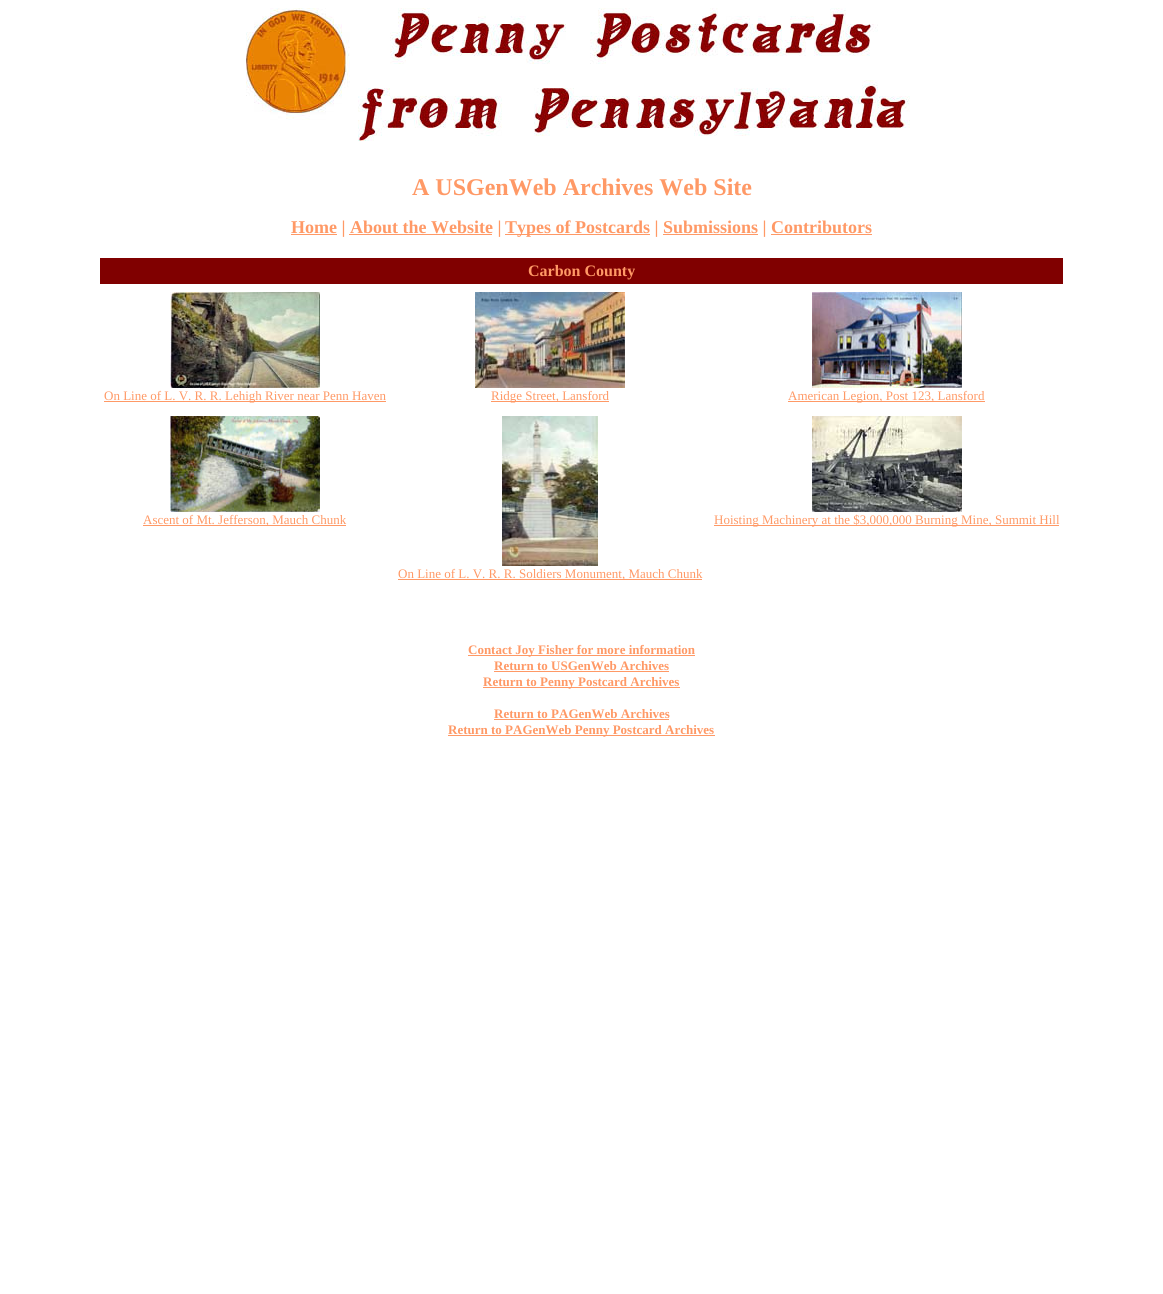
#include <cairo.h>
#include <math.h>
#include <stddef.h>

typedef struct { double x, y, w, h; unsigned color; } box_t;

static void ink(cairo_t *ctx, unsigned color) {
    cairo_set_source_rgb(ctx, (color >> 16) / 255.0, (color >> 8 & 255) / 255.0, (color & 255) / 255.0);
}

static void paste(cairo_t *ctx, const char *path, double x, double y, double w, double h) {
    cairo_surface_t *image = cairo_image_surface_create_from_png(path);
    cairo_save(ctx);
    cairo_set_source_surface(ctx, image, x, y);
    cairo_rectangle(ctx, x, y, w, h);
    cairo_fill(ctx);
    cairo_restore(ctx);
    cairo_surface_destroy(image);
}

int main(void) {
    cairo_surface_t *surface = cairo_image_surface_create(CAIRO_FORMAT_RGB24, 1163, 1294);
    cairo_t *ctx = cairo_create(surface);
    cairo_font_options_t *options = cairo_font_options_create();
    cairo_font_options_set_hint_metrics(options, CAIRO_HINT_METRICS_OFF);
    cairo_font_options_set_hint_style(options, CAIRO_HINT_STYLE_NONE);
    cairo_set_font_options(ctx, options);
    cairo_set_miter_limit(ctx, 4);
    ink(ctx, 0xFFFFFF);
    cairo_paint(ctx);
    paste(ctx, "media/1.png", 246, 8, 664, 133);
    cairo_select_font_face(ctx, "Liberation Serif", CAIRO_FONT_SLANT_NORMAL, CAIRO_FONT_WEIGHT_BOLD);
    cairo_set_font_size(ctx, 24);
    ink(ctx, 0xFF9966);
    cairo_move_to(ctx, 412, 195);
    cairo_show_text(ctx, "A USGenWeb Archives Web Site");
    cairo_rectangle(ctx, 291, 234, 46, 1);
    cairo_fill(ctx);
    cairo_set_font_size(ctx, 18);
    cairo_move_to(ctx, 291, 233);
    cairo_show_text(ctx, "Home | About the Website |");
    cairo_rectangle(ctx, 349, 234, 143, 1);
    cairo_fill(ctx);
    cairo_rectangle(ctx, 505, 234, 145, 1);
    cairo_fill(ctx);
    cairo_move_to(ctx, 505, 233);
    cairo_show_text(ctx, "Types of Postcards | Submissions | Contributors");
    {
        static const box_t items[] = {
            {663, 234, 95, 1, 0xFF9966},
            {771, 234, 101, 1, 0xFF9966},
            {100, 258, 963, 26, 0x800000},
        };
        for (size_t i = 0; i < sizeof items / sizeof *items; i++) {
            ink(ctx, items[i].color);
            cairo_rectangle(ctx, items[i].x, items[i].y, items[i].w, items[i].h);
            cairo_fill(ctx);
        }
    }
    cairo_set_font_size(ctx, 16);
    ink(ctx, 0xFF9966);
    cairo_move_to(ctx, 528, 276);
    cairo_show_text(ctx, "Carbon County");
    paste(ctx, "media/2.png", 170, 292, 150, 96);
    cairo_rectangle(ctx, 104, 401, 282, 1);
    cairo_fill(ctx);
    cairo_select_font_face(ctx, "Liberation Serif", CAIRO_FONT_SLANT_NORMAL, CAIRO_FONT_WEIGHT_NORMAL);
    cairo_set_font_size(ctx, 13);
    cairo_move_to(ctx, 104, 400);
    cairo_show_text(ctx, "On Line of L. V. R. R. Lehigh River near Penn Haven");
    paste(ctx, "media/3.png", 475, 292, 150, 96);
    cairo_rectangle(ctx, 491, 401, 118, 1);
    cairo_fill(ctx);
    cairo_move_to(ctx, 491, 400);
    cairo_show_text(ctx, "Ridge Street, Lansford");
    paste(ctx, "media/4.png", 812, 292, 150, 96);
    cairo_rectangle(ctx, 788, 401, 197, 1);
    cairo_fill(ctx);
    cairo_move_to(ctx, 788, 400);
    cairo_show_text(ctx, "American Legion, Post 123, Lansford");
    paste(ctx, "media/5.png", 170, 416, 150, 96);
    cairo_rectangle(ctx, 143, 525, 203, 1);
    cairo_fill(ctx);
    cairo_move_to(ctx, 143, 524);
    cairo_show_text(ctx, "Ascent of Mt. Jefferson, Mauch Chunk");
    paste(ctx, "media/6.png", 812, 416, 150, 96);
    cairo_rectangle(ctx, 714, 525, 345, 1);
    cairo_fill(ctx);
    cairo_move_to(ctx, 714, 524);
    cairo_show_text(ctx, "Hoisting Machinery at the $3,000,000 Burning Mine, Summit Hill");
    paste(ctx, "media/7.png", 502, 416, 96, 150);
    cairo_rectangle(ctx, 398, 579, 304, 1);
    cairo_fill(ctx);
    cairo_move_to(ctx, 398, 578);
    cairo_show_text(ctx, "On Line of L. V. R. R. Soldiers Monument, Mauch Chunk");
    cairo_rectangle(ctx, 468, 655, 227, 1);
    cairo_fill(ctx);
    cairo_select_font_face(ctx, "Liberation Serif", CAIRO_FONT_SLANT_NORMAL, CAIRO_FONT_WEIGHT_BOLD);
    cairo_move_to(ctx, 468, 654);
    cairo_show_text(ctx, "Contact Joy Fisher for more information");
    cairo_move_to(ctx, 494, 670);
    cairo_show_text(ctx, "Return to USGenWeb Archives");
    cairo_rectangle(ctx, 494, 671, 175, 1);
    cairo_fill(ctx);
    cairo_rectangle(ctx, 483, 687, 197, 1);
    cairo_fill(ctx);
    cairo_move_to(ctx, 483, 686);
    cairo_show_text(ctx, "Return to Penny Postcard Archives");
    cairo_move_to(ctx, 494, 718);
    cairo_show_text(ctx, "Return to PAGenWeb Archives");
    cairo_rectangle(ctx, 494, 719, 175, 1);
    cairo_fill(ctx);
    cairo_rectangle(ctx, 448, 735, 267, 1);
    cairo_fill(ctx);
    cairo_move_to(ctx, 448, 734);
    cairo_show_text(ctx, "Return to PAGenWeb Penny Postcard Archives");
    cairo_surface_write_to_png(surface, "image.png");
    cairo_font_options_destroy(options);
    cairo_destroy(ctx);
    cairo_surface_destroy(surface);
    return 0;
}
